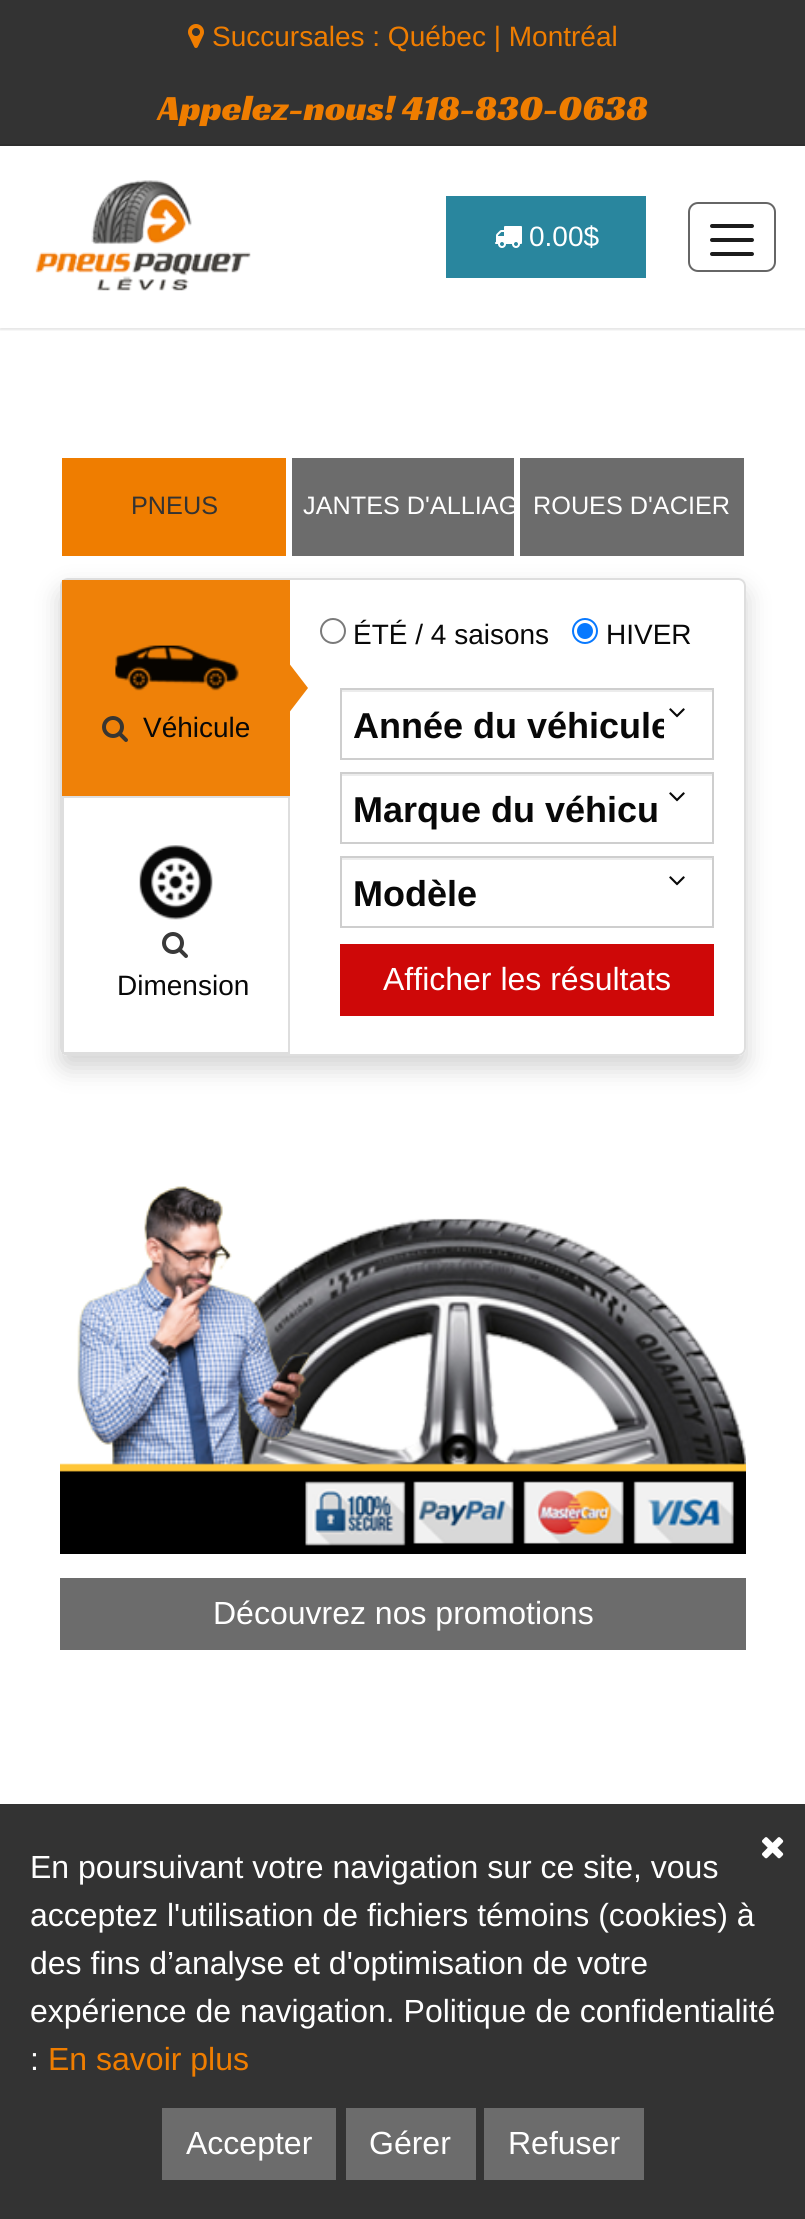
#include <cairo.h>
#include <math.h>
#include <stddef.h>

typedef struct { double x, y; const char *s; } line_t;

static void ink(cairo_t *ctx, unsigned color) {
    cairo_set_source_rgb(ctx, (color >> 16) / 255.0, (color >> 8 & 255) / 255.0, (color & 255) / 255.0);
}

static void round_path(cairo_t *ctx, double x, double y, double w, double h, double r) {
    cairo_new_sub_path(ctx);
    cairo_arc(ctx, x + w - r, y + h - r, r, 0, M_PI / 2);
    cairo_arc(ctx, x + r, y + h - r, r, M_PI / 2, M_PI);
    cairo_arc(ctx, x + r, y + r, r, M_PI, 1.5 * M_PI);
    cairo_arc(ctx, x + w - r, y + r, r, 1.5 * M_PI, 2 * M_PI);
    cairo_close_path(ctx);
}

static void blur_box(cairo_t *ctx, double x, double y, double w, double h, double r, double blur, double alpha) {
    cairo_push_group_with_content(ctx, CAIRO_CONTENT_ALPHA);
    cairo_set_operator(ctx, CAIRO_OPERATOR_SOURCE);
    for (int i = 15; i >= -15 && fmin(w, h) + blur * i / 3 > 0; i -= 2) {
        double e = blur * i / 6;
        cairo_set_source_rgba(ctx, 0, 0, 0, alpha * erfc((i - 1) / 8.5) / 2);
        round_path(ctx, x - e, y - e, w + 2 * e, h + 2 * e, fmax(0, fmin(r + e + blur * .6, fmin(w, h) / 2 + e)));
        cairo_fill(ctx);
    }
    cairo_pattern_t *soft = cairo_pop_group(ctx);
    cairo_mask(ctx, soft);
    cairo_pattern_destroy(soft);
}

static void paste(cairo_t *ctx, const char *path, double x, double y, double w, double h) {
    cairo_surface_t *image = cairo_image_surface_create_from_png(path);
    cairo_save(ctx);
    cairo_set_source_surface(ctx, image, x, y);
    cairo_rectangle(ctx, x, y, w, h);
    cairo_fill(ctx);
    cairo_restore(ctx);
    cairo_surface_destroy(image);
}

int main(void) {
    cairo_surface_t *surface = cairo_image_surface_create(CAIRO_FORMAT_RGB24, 805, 2219);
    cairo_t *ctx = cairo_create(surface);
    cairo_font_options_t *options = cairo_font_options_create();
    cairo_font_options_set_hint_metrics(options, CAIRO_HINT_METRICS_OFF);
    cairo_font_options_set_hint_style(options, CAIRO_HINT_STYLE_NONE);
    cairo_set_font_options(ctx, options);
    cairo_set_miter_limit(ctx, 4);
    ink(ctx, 0xFFFFFF);
    cairo_paint(ctx);
    ink(ctx, 0x333333);
    cairo_rectangle(ctx, 0, 0, 805, 144);
    cairo_fill(ctx);
    ink(ctx, 0x2E2E2E);
    cairo_rectangle(ctx, 0, 144, 805, 2);
    cairo_fill(ctx);
    paste(ctx, "media/1.png", 188, 24, 16, 24);
    cairo_select_font_face(ctx, "Liberation Sans", CAIRO_FONT_SLANT_NORMAL, CAIRO_FONT_WEIGHT_NORMAL);
    cairo_set_font_size(ctx, 28);
    ink(ctx, 0xEF7D00);
    cairo_move_to(ctx, 212, 46);
    cairo_show_text(ctx, "Succursales : Québec | Montréal");
    cairo_select_font_face(ctx, "Racing Sans One", CAIRO_FONT_SLANT_NORMAL, CAIRO_FONT_WEIGHT_NORMAL);
    cairo_set_font_size(ctx, 36);
    cairo_move_to(ctx, 158, 120);
    cairo_show_text(ctx, "Appelez-nous! 418-830-0638");
    cairo_save(ctx);
    cairo_rectangle(ctx, 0, 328, 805, 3);
    cairo_clip(ctx);
    ink(ctx, 0x000000);
    blur_box(ctx, 0, 148, 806, 182, 0, 1, 0.1);
    cairo_restore(ctx);
    paste(ctx, "media/2.png", 35, 180, 216, 111);
    round_path(ctx, 689, 203, 86, 68, 9);
    ink(ctx, 0x666666);
    cairo_stroke(ctx);
    ink(ctx, 0x1C1C1C);
    round_path(ctx, 710, 224, 44, 4, 2);
    cairo_fill(ctx);
    round_path(ctx, 710, 238, 44, 4, 2);
    cairo_fill(ctx);
    round_path(ctx, 710, 252, 44, 4, 2);
    cairo_fill(ctx);
    ink(ctx, 0x29869E);
    cairo_rectangle(ctx, 446, 196, 200, 82);
    cairo_fill(ctx);
    paste(ctx, "media/3.png", 495, 226, 27, 22);
    cairo_select_font_face(ctx, "Liberation Sans", CAIRO_FONT_SLANT_NORMAL, CAIRO_FONT_WEIGHT_NORMAL);
    cairo_set_font_size(ctx, 28);
    ink(ctx, 0xFFFFFF);
    cairo_move_to(ctx, 529, 246);
    cairo_show_text(ctx, "0.00$");
    ink(ctx, 0xEF7D00);
    cairo_rectangle(ctx, 62, 458, 224, 98);
    cairo_fill(ctx);
    cairo_set_font_size(ctx, 25.25);
    ink(ctx, 0x333333);
    cairo_move_to(ctx, 131, 514);
    cairo_show_text(ctx, "PNEUS");
    ink(ctx, 0x6C6C6C);
    cairo_rectangle(ctx, 292, 458, 222, 98);
    cairo_fill(ctx);
    ink(ctx, 0xFFFFFF);
    cairo_move_to(ctx, 303, 514);
    cairo_show_text(ctx, "JANTES D'ALLIAG");
    ink(ctx, 0x6C6C6C);
    cairo_rectangle(ctx, 520, 458, 224, 98);
    cairo_fill(ctx);
    ink(ctx, 0xFFFFFF);
    cairo_move_to(ctx, 533, 514);
    cairo_show_text(ctx, "ROUES D'ACIER");
    cairo_save(ctx);
    cairo_set_fill_rule(ctx, CAIRO_FILL_RULE_EVEN_ODD);
    cairo_new_path(ctx);
    cairo_move_to(ctx, 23, 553);
    cairo_line_to(ctx, 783, 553);
    cairo_line_to(ctx, 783, 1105);
    cairo_line_to(ctx, 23, 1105);
    cairo_close_path(ctx);
    cairo_move_to(ctx, 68, 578);
    cairo_line_to(ctx, 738, 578);
    cairo_curve_to(ctx, 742.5, 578, 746, 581.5, 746, 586);
    cairo_line_to(ctx, 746, 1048);
    cairo_curve_to(ctx, 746, 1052.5, 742.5, 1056, 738, 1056);
    cairo_line_to(ctx, 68, 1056);
    cairo_curve_to(ctx, 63.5, 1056, 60, 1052.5, 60, 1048);
    cairo_line_to(ctx, 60, 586);
    cairo_curve_to(ctx, 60, 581.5, 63.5, 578, 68, 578);
    cairo_close_path(ctx);
    cairo_clip(ctx);
    ink(ctx, 0x080808);
    blur_box(ctx, 60, 590, 686, 478, 8, 12, 0.18);
    cairo_restore(ctx);
    round_path(ctx, 61, 579, 684, 476, 7);
    ink(ctx, 0xDEDEDE);
    cairo_stroke(ctx);
    ink(ctx, 0xEF8108);
    cairo_rectangle(ctx, 62, 580, 228, 216);
    cairo_fill(ctx);
    paste(ctx, "media/4.png", 115, 645, 124, 46);
    cairo_new_path(ctx);
    cairo_move_to(ctx, 288, 714);
    cairo_line_to(ctx, 288, 662);
    cairo_line_to(ctx, 308, 688);
    cairo_close_path(ctx);
    cairo_fill(ctx);
    paste(ctx, "media/5.png", 102, 716, 26, 26);
    cairo_set_font_size(ctx, 28);
    ink(ctx, 0x080808);
    cairo_move_to(ctx, 143, 737);
    cairo_show_text(ctx, "Véhicule");
    cairo_rectangle(ctx, 63, 797, 226, 256);
    ink(ctx, 0xDEDEDE);
    cairo_stroke(ctx);
    paste(ctx, "media/6.png", 139, 845, 74, 75);
    paste(ctx, "media/7.png", 162, 932, 26, 26);
    ink(ctx, 0x080808);
    cairo_move_to(ctx, 117, 995);
    cairo_show_text(ctx, "Dimension");
    cairo_new_path(ctx);
    cairo_arc(ctx, 333, 631, 12, 0, 2 * M_PI);
    ink(ctx, 0x7A7A7A);
    cairo_stroke(ctx);
    ink(ctx, 0x080808);
    cairo_move_to(ctx, 353, 644);
    cairo_show_text(ctx, "ÉTÉ / 4 saisons");
    cairo_new_path(ctx);
    cairo_arc(ctx, 585, 631, 12, 0, 2 * M_PI);
    ink(ctx, 0x0879FF);
    cairo_stroke(ctx);
    cairo_arc(ctx, 585, 631, 8, 0, 2 * M_PI);
    cairo_fill(ctx);
    ink(ctx, 0x080808);
    cairo_move_to(ctx, 606, 644);
    cairo_show_text(ctx, "HIVER");
    ink(ctx, 0xECECEC);
    cairo_rectangle(ctx, 342, 690, 370, 2);
    cairo_fill(ctx);
    paste(ctx, "media/8.png", 669, 708, 16, 10);
    cairo_rectangle(ctx, 341, 689, 372, 70);
    ink(ctx, 0xCECECE);
    cairo_stroke(ctx);
    cairo_save(ctx);
    cairo_rectangle(ctx, 354, 690, 310, 70);
    cairo_clip(ctx);
    cairo_select_font_face(ctx, "Liberation Sans", CAIRO_FONT_SLANT_NORMAL, CAIRO_FONT_WEIGHT_BOLD);
    cairo_set_font_size(ctx, 36);
    ink(ctx, 0x080808);
    cairo_move_to(ctx, 353, 738);
    cairo_show_text(ctx, "Année du véhicule");
    cairo_restore(ctx);
    ink(ctx, 0xECECEC);
    cairo_rectangle(ctx, 342, 774, 370, 2);
    cairo_fill(ctx);
    paste(ctx, "media/8.png", 669, 792, 16, 10);
    cairo_rectangle(ctx, 341, 773, 372, 70);
    ink(ctx, 0xCECECE);
    cairo_stroke(ctx);
    cairo_select_font_face(ctx, "Liberation Sans", CAIRO_FONT_SLANT_NORMAL, CAIRO_FONT_WEIGHT_BOLD);
    cairo_set_font_size(ctx, 36);
    ink(ctx, 0x080808);
    cairo_move_to(ctx, 353, 822);
    cairo_show_text(ctx, "Marque du véhicu");
    ink(ctx, 0xECECEC);
    cairo_rectangle(ctx, 342, 858, 370, 2);
    cairo_fill(ctx);
    paste(ctx, "media/8.png", 669, 876, 16, 10);
    cairo_rectangle(ctx, 341, 857, 372, 70);
    ink(ctx, 0xCECECE);
    cairo_stroke(ctx);
    ink(ctx, 0x080808);
    cairo_move_to(ctx, 353, 906);
    cairo_show_text(ctx, "Modèle");
    ink(ctx, 0xCE0808);
    cairo_rectangle(ctx, 340, 944, 374, 72);
    cairo_fill(ctx);
    cairo_select_font_face(ctx, "Liberation Sans", CAIRO_FONT_SLANT_NORMAL, CAIRO_FONT_WEIGHT_NORMAL);
    cairo_set_font_size(ctx, 32);
    ink(ctx, 0xFFFFFF);
    cairo_move_to(ctx, 383, 990);
    cairo_show_text(ctx, "Afficher les résultats");
    paste(ctx, "media/9.png", 60, 1186, 686, 368);
    ink(ctx, 0x6C6C6C);
    cairo_rectangle(ctx, 60, 1578, 686, 72);
    cairo_fill(ctx);
    ink(ctx, 0xFFFFFF);
    cairo_move_to(ctx, 213, 1624);
    cairo_show_text(ctx, "Découvrez nos promotions");
    ink(ctx, 0x333333);
    cairo_rectangle(ctx, 0, 1804, 805, 415);
    cairo_fill(ctx);
    paste(ctx, "media/10.png", 762, 1837, 22, 22);
    ink(ctx, 0xFFFFFF);
    {
        static const line_t items[] = {
            {30, 1878, "En poursuivant votre navigation sur ce site, vous"},
            {30, 1926, "acceptez l'utilisation de fichiers témoins (cookies) à"},
            {30, 1974, "des fins d’analyse et d'optimisation de votre"},
            {30, 2022, "expérience de navigation. Politique de confidentialité"},
            {30, 2070, ":"},
        };
        for (size_t i = 0; i < sizeof items / sizeof *items; i++) {
            cairo_move_to(ctx, items[i].x, items[i].y);
            cairo_show_text(ctx, items[i].s);
        }
    }
    ink(ctx, 0xEF7D00);
    cairo_move_to(ctx, 48, 2070);
    cairo_show_text(ctx, "En savoir plus");
    ink(ctx, 0x6C6C6C);
    cairo_rectangle(ctx, 162, 2108, 174, 72);
    cairo_fill(ctx);
    ink(ctx, 0xFFFFFF);
    cairo_move_to(ctx, 186, 2154);
    cairo_show_text(ctx, "Accepter");
    ink(ctx, 0x6C6C6C);
    cairo_rectangle(ctx, 346, 2108, 130, 72);
    cairo_fill(ctx);
    ink(ctx, 0xFFFFFF);
    cairo_move_to(ctx, 369, 2154);
    cairo_show_text(ctx, "Gérer");
    ink(ctx, 0x6C6C6C);
    cairo_rectangle(ctx, 484, 2108, 160, 72);
    cairo_fill(ctx);
    ink(ctx, 0xFFFFFF);
    cairo_move_to(ctx, 508, 2154);
    cairo_show_text(ctx, "Refuser");
    cairo_surface_write_to_png(surface, "image.png");
    cairo_font_options_destroy(options);
    cairo_destroy(ctx);
    cairo_surface_destroy(surface);
    return 0;
}
